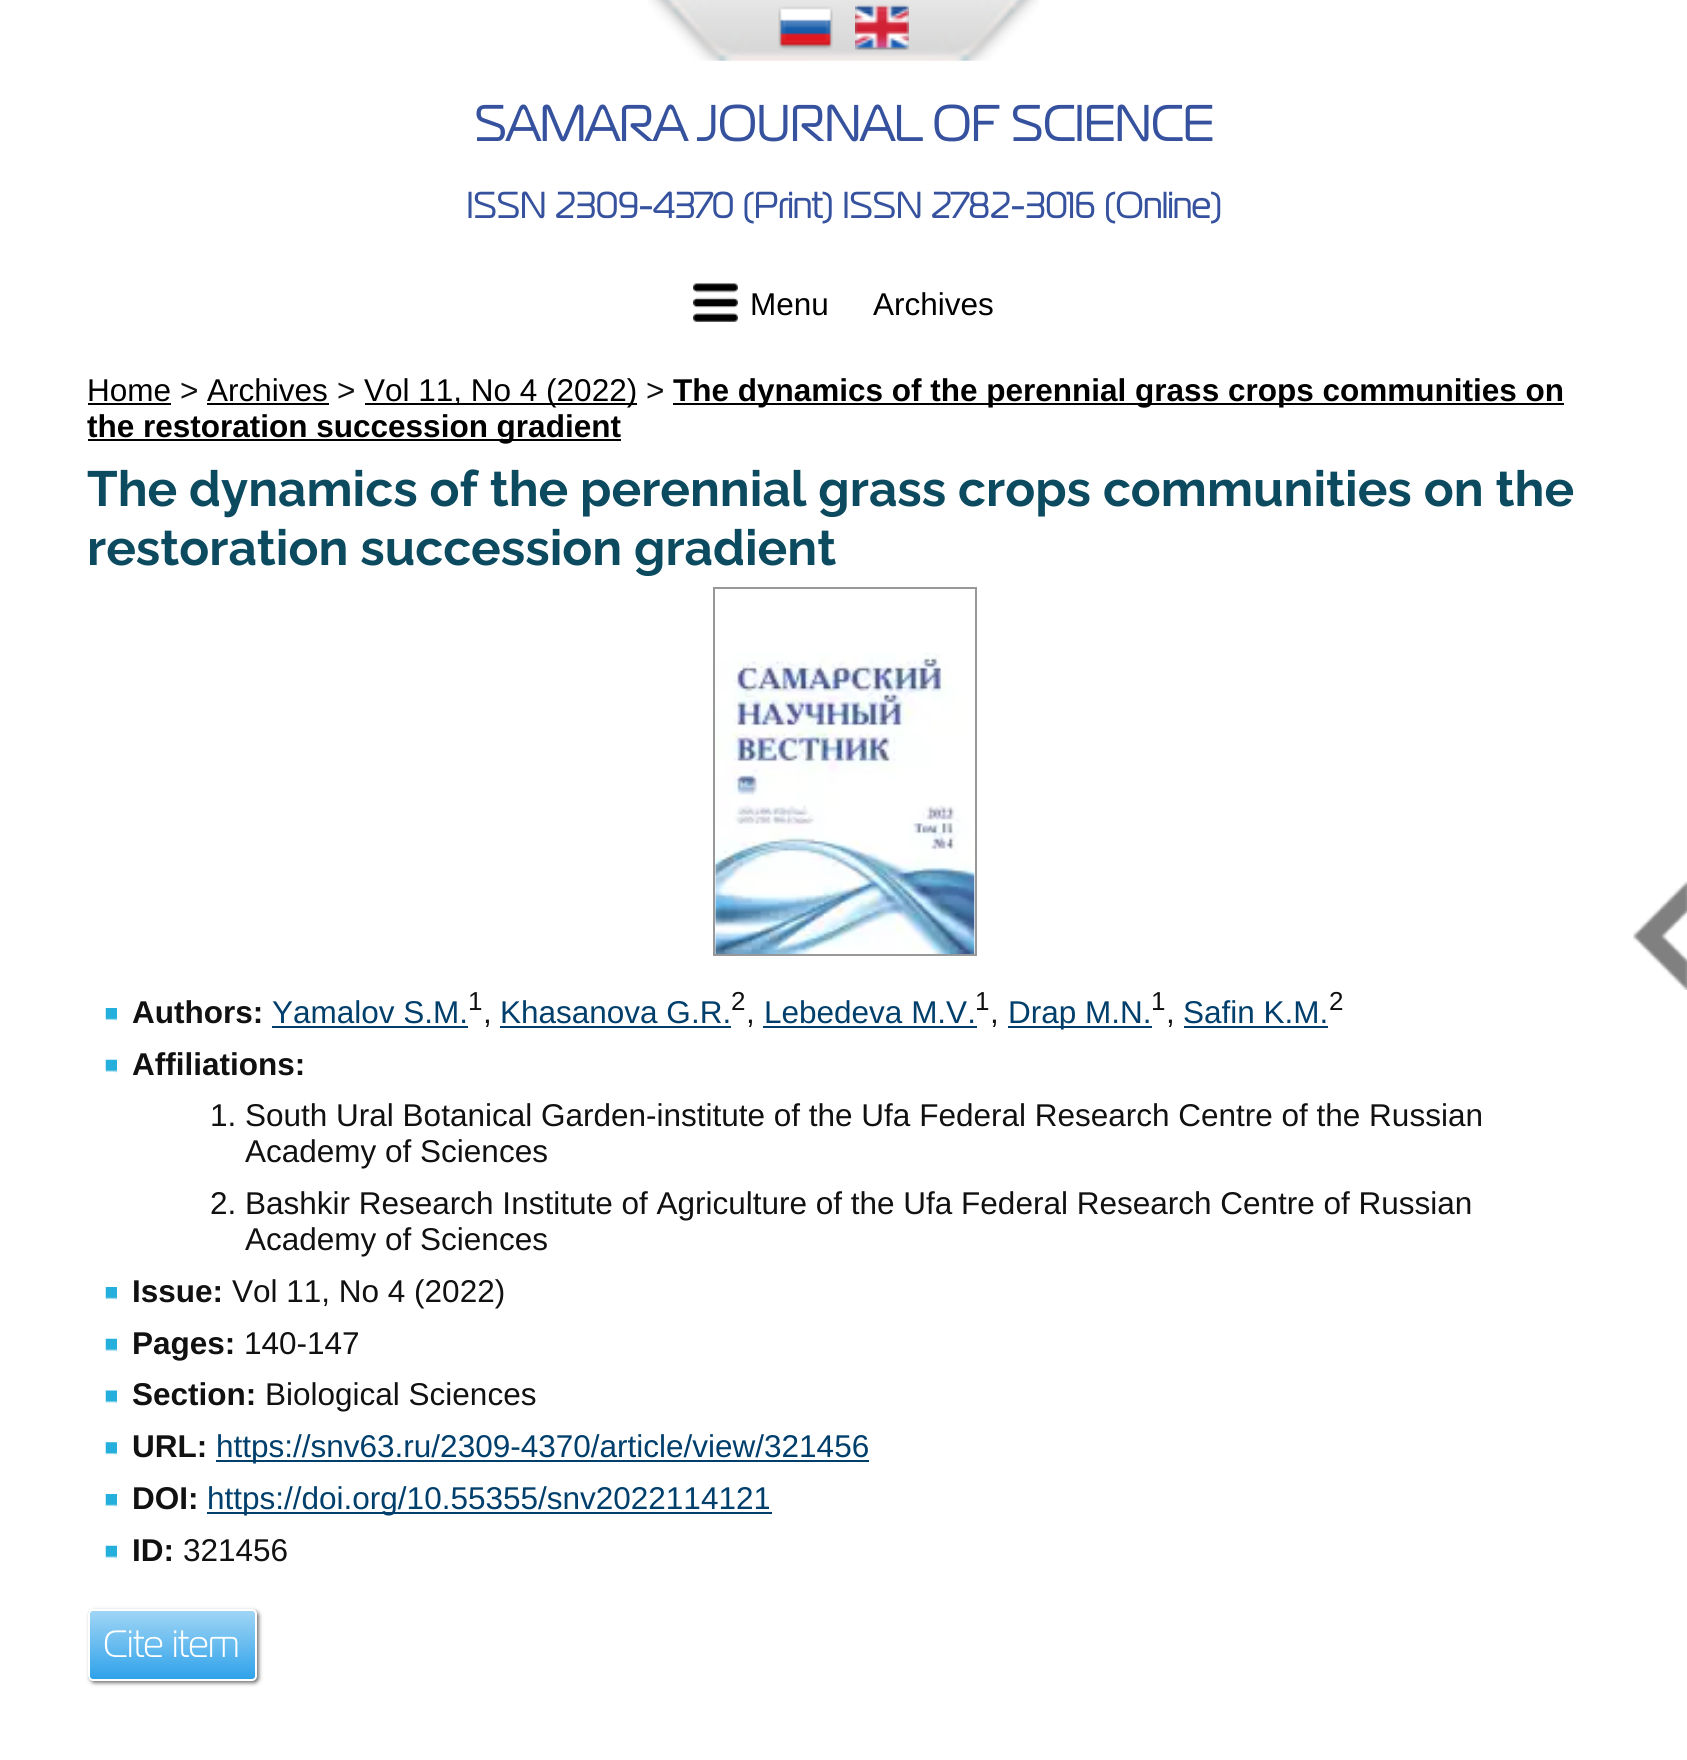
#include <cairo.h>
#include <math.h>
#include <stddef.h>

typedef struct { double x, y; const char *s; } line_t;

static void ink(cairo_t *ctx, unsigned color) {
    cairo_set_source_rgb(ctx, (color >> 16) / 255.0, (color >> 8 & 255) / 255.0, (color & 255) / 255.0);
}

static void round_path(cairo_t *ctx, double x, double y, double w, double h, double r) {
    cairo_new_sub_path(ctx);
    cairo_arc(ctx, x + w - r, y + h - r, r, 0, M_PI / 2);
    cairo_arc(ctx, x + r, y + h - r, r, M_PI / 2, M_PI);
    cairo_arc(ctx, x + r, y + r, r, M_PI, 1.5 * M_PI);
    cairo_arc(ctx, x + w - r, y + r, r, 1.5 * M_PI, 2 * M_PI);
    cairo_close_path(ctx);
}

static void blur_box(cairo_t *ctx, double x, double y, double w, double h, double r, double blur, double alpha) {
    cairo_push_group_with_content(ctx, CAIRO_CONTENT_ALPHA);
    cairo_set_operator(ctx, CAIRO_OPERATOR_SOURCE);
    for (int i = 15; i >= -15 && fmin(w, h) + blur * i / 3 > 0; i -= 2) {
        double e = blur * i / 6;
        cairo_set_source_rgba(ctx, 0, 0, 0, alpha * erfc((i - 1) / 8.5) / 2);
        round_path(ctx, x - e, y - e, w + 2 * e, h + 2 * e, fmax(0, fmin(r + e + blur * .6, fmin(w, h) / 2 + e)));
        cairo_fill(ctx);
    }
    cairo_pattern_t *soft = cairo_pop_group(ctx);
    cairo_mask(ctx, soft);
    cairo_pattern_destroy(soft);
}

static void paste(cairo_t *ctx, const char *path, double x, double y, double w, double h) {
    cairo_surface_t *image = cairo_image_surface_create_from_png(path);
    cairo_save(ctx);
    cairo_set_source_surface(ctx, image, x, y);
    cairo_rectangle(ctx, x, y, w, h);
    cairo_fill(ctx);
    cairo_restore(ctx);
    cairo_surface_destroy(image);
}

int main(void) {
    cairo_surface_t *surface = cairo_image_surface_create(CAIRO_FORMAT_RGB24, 1687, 1760);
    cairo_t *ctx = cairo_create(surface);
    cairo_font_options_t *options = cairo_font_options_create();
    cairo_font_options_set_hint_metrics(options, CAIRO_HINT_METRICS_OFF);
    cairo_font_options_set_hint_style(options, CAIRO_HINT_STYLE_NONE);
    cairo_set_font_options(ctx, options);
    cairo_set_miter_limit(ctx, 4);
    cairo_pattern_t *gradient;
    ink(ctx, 0xFFFFFF);
    cairo_paint(ctx);
    paste(ctx, "media/1.png", 648, 0, 391, 61);
    paste(ctx, "media/2.png", 778, 6, 55, 44);
    paste(ctx, "media/3.png", 855, 4, 54, 47);
    cairo_select_font_face(ctx, "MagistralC", CAIRO_FONT_SLANT_NORMAL, CAIRO_FONT_WEIGHT_BOLD);
    cairo_set_font_size(ctx, 49.5);
    ink(ctx, 0x36529E);
    cairo_move_to(ctx, 474, 141);
    cairo_show_text(ctx, "SAMARA JOURNAL OF SCIENCE");
    cairo_set_font_size(ctx, 36);
    cairo_move_to(ctx, 466, 218);
    cairo_show_text(ctx, "ISSN 2309-4370 (Print)");
    cairo_move_to(ctx, 842, 218);
    cairo_show_text(ctx, "ISSN 2782-3016 (Online)");
    paste(ctx, "media/4.png", 693, 283, 45, 39);
    cairo_select_font_face(ctx, "Liberation Sans", CAIRO_FONT_SLANT_NORMAL, CAIRO_FONT_WEIGHT_NORMAL);
    cairo_set_font_size(ctx, 31.5);
    ink(ctx, 0x000000);
    {
        static const line_t items[] = {
            {750, 315, "Menu"},
            {873, 315, "Archives"},
            {87, 401, "Home"},
        };
        for (size_t i = 0; i < sizeof items / sizeof *items; i++) {
            cairo_move_to(ctx, items[i].x, items[i].y);
            cairo_show_text(ctx, items[i].s);
        }
    }
    ink(ctx, 0x010101);
    cairo_rectangle(ctx, 88, 403, 83, 2);
    cairo_fill(ctx);
    ink(ctx, 0x111111);
    cairo_move_to(ctx, 180, 401);
    cairo_show_text(ctx, ">");
    ink(ctx, 0x000000);
    cairo_move_to(ctx, 207, 401);
    cairo_show_text(ctx, "Archives");
    ink(ctx, 0x010101);
    cairo_rectangle(ctx, 207, 403, 122, 2);
    cairo_fill(ctx);
    ink(ctx, 0x111111);
    cairo_move_to(ctx, 337, 401);
    cairo_show_text(ctx, ">");
    ink(ctx, 0x010101);
    cairo_rectangle(ctx, 365, 403, 272, 2);
    cairo_fill(ctx);
    ink(ctx, 0x000000);
    cairo_move_to(ctx, 364, 401);
    cairo_show_text(ctx, "Vol 11, No 4 (2022)");
    ink(ctx, 0x111111);
    cairo_move_to(ctx, 646, 401);
    cairo_show_text(ctx, ">");
    ink(ctx, 0x010101);
    cairo_rectangle(ctx, 673, 403, 891, 2);
    cairo_fill(ctx);
    cairo_select_font_face(ctx, "Liberation Sans", CAIRO_FONT_SLANT_NORMAL, CAIRO_FONT_WEIGHT_BOLD);
    ink(ctx, 0x000000);
    cairo_move_to(ctx, 673, 401);
    cairo_show_text(ctx, "The dynamics of the perennial grass crops communities on");
    ink(ctx, 0x010101);
    cairo_rectangle(ctx, 88, 439, 533, 2);
    cairo_fill(ctx);
    ink(ctx, 0x000000);
    cairo_move_to(ctx, 87, 437);
    cairo_show_text(ctx, "the restoration succession gradient");
    cairo_select_font_face(ctx, "Raleway", CAIRO_FONT_SLANT_NORMAL, CAIRO_FONT_WEIGHT_BOLD);
    cairo_set_font_size(ctx, 49.5);
    ink(ctx, 0x0B4A5F);
    cairo_move_to(ctx, 87, 506);
    cairo_show_text(ctx, "The dynamics of the perennial grass crops communities on the");
    cairo_move_to(ctx, 87, 565);
    cairo_show_text(ctx, "restoration succession gradient");
    cairo_rectangle(ctx, 714, 588, 262, 367);
    ink(ctx, 0x989898);
    cairo_stroke(ctx);
    paste(ctx, "media/5.png", 715, 652, 260, 302);
    paste(ctx, "media/6.png", 105, 1008, 12, 14);
    cairo_select_font_face(ctx, "Liberation Sans", CAIRO_FONT_SLANT_NORMAL, CAIRO_FONT_WEIGHT_BOLD);
    cairo_set_font_size(ctx, 31.5);
    ink(ctx, 0x111111);
    cairo_move_to(ctx, 132, 1023);
    cairo_show_text(ctx, "Authors:");
    cairo_select_font_face(ctx, "Liberation Sans", CAIRO_FONT_SLANT_NORMAL, CAIRO_FONT_WEIGHT_NORMAL);
    ink(ctx, 0x003F6C);
    cairo_move_to(ctx, 272, 1023);
    cairo_show_text(ctx, "Yamalov S.M.");
    cairo_rectangle(ctx, 272, 1026, 196, 2);
    cairo_fill(ctx);
    cairo_set_font_size(ctx, 26);
    ink(ctx, 0x111111);
    cairo_move_to(ctx, 468, 1010);
    cairo_show_text(ctx, "1");
    cairo_set_font_size(ctx, 31.5);
    cairo_move_to(ctx, 483, 1023);
    cairo_show_text(ctx, ",");
    ink(ctx, 0x003F6C);
    cairo_move_to(ctx, 500, 1023);
    cairo_show_text(ctx, "Khasanova G.R.");
    cairo_rectangle(ctx, 500, 1026, 231, 2);
    cairo_fill(ctx);
    cairo_set_font_size(ctx, 26);
    ink(ctx, 0x111111);
    cairo_move_to(ctx, 731, 1010);
    cairo_show_text(ctx, "2");
    cairo_set_font_size(ctx, 31.5);
    cairo_move_to(ctx, 746, 1023);
    cairo_show_text(ctx, ",");
    ink(ctx, 0x003F6C);
    cairo_move_to(ctx, 764, 1023);
    cairo_show_text(ctx, "Lebedeva M.V.");
    cairo_rectangle(ctx, 763, 1026, 214, 2);
    cairo_fill(ctx);
    cairo_set_font_size(ctx, 26);
    ink(ctx, 0x111111);
    cairo_move_to(ctx, 975, 1010);
    cairo_show_text(ctx, "1");
    cairo_set_font_size(ctx, 31.5);
    cairo_move_to(ctx, 990, 1023);
    cairo_show_text(ctx, ",");
    ink(ctx, 0x003F6C);
    cairo_rectangle(ctx, 1008, 1026, 144, 2);
    cairo_fill(ctx);
    cairo_move_to(ctx, 1008, 1023);
    cairo_show_text(ctx, "Drap M.N.");
    cairo_set_font_size(ctx, 26);
    ink(ctx, 0x111111);
    cairo_move_to(ctx, 1151, 1010);
    cairo_show_text(ctx, "1");
    cairo_set_font_size(ctx, 31.5);
    cairo_move_to(ctx, 1166, 1023);
    cairo_show_text(ctx, ",");
    ink(ctx, 0x003F6C);
    cairo_move_to(ctx, 1183, 1023);
    cairo_show_text(ctx, "Safin K.M.");
    cairo_rectangle(ctx, 1184, 1026, 144, 2);
    cairo_fill(ctx);
    cairo_set_font_size(ctx, 26);
    ink(ctx, 0x111111);
    cairo_move_to(ctx, 1329, 1010);
    cairo_show_text(ctx, "2");
    paste(ctx, "media/7.png", 105, 1059, 12, 15);
    cairo_select_font_face(ctx, "Liberation Sans", CAIRO_FONT_SLANT_NORMAL, CAIRO_FONT_WEIGHT_BOLD);
    cairo_set_font_size(ctx, 31.5);
    cairo_move_to(ctx, 132, 1075);
    cairo_show_text(ctx, "Affiliations:");
    cairo_select_font_face(ctx, "Liberation Sans", CAIRO_FONT_SLANT_NORMAL, CAIRO_FONT_WEIGHT_NORMAL);
    {
        static const line_t items[] = {
            {210, 1126, "1. South Ural Botanical Garden-institute of the Ufa Federal Research Centre of the Russian"},
            {245, 1162, "Academy of Sciences"},
            {210, 1214, "2. Bashkir Research Institute of Agriculture of the Ufa Federal Research Centre of Russian"},
            {245, 1250, "Academy of Sciences"},
        };
        for (size_t i = 0; i < sizeof items / sizeof *items; i++) {
            cairo_move_to(ctx, items[i].x, items[i].y);
            cairo_show_text(ctx, items[i].s);
        }
    }
    paste(ctx, "media/8.png", 105, 1287, 12, 14);
    cairo_select_font_face(ctx, "Liberation Sans", CAIRO_FONT_SLANT_NORMAL, CAIRO_FONT_WEIGHT_BOLD);
    cairo_move_to(ctx, 132, 1302);
    cairo_show_text(ctx, "Issue:");
    cairo_select_font_face(ctx, "Liberation Sans", CAIRO_FONT_SLANT_NORMAL, CAIRO_FONT_WEIGHT_NORMAL);
    cairo_move_to(ctx, 232, 1302);
    cairo_show_text(ctx, "Vol 11, No 4 (2022)");
    paste(ctx, "media/7.png", 105, 1338, 12, 15);
    cairo_select_font_face(ctx, "Liberation Sans", CAIRO_FONT_SLANT_NORMAL, CAIRO_FONT_WEIGHT_BOLD);
    cairo_move_to(ctx, 132, 1354);
    cairo_show_text(ctx, "Pages:");
    cairo_select_font_face(ctx, "Liberation Sans", CAIRO_FONT_SLANT_NORMAL, CAIRO_FONT_WEIGHT_NORMAL);
    cairo_move_to(ctx, 244, 1354);
    cairo_show_text(ctx, "140-147");
    paste(ctx, "media/9.png", 105, 1390, 12, 14);
    cairo_select_font_face(ctx, "Liberation Sans", CAIRO_FONT_SLANT_NORMAL, CAIRO_FONT_WEIGHT_BOLD);
    cairo_move_to(ctx, 132, 1405);
    cairo_show_text(ctx, "Section:");
    cairo_select_font_face(ctx, "Liberation Sans", CAIRO_FONT_SLANT_NORMAL, CAIRO_FONT_WEIGHT_NORMAL);
    cairo_move_to(ctx, 265, 1405);
    cairo_show_text(ctx, "Biological Sciences");
    paste(ctx, "media/10.png", 105, 1442, 12, 14);
    cairo_select_font_face(ctx, "Liberation Sans", CAIRO_FONT_SLANT_NORMAL, CAIRO_FONT_WEIGHT_BOLD);
    cairo_move_to(ctx, 132, 1457);
    cairo_show_text(ctx, "URL:");
    ink(ctx, 0x003F6C);
    cairo_rectangle(ctx, 216, 1460, 653, 2);
    cairo_fill(ctx);
    cairo_select_font_face(ctx, "Liberation Sans", CAIRO_FONT_SLANT_NORMAL, CAIRO_FONT_WEIGHT_NORMAL);
    cairo_move_to(ctx, 216, 1457);
    cairo_show_text(ctx, "https://snv63.ru/2309-4370/article/view/321456");
    paste(ctx, "media/6.png", 105, 1494, 12, 14);
    cairo_select_font_face(ctx, "Liberation Sans", CAIRO_FONT_SLANT_NORMAL, CAIRO_FONT_WEIGHT_BOLD);
    ink(ctx, 0x111111);
    cairo_move_to(ctx, 132, 1509);
    cairo_show_text(ctx, "DOI:");
    ink(ctx, 0x003F6C);
    cairo_rectangle(ctx, 207, 1512, 565, 2);
    cairo_fill(ctx);
    cairo_select_font_face(ctx, "Liberation Sans", CAIRO_FONT_SLANT_NORMAL, CAIRO_FONT_WEIGHT_NORMAL);
    cairo_move_to(ctx, 207, 1509);
    cairo_show_text(ctx, "https://doi.org/10.55355/snv2022114121");
    paste(ctx, "media/7.png", 105, 1545, 12, 15);
    cairo_select_font_face(ctx, "Liberation Sans", CAIRO_FONT_SLANT_NORMAL, CAIRO_FONT_WEIGHT_BOLD);
    ink(ctx, 0x111111);
    cairo_move_to(ctx, 132, 1561);
    cairo_show_text(ctx, "ID:");
    cairo_select_font_face(ctx, "Liberation Sans", CAIRO_FONT_SLANT_NORMAL, CAIRO_FONT_WEIGHT_NORMAL);
    cairo_move_to(ctx, 183, 1561);
    cairo_show_text(ctx, "321456");
    ink(ctx, 0x737373);
    blur_box(ctx, 90, 1611, 169, 72, 5, 2, 1);
    cairo_save(ctx);
    round_path(ctx, 88, 1609, 169, 72, 5);
    cairo_clip(ctx);
    gradient = cairo_pattern_create_linear(172, 1611, 172, 1679);
    cairo_pattern_add_color_stop_rgba(gradient, 0, 0.627, 0.835, 0.961, 1);
    cairo_pattern_add_color_stop_rgba(gradient, 1, 0.184, 0.635, 0.918, 1);
    cairo_set_source(ctx, gradient);
    cairo_pattern_destroy(gradient);
    cairo_rectangle(ctx, 88, 1611, 169, 68);
    cairo_fill(ctx);
    cairo_restore(ctx);
    round_path(ctx, 89, 1610, 167, 70, 4);
    ink(ctx, 0xFFFFFF);
    cairo_stroke(ctx);
    cairo_select_font_face(ctx, "MagistralC", CAIRO_FONT_SLANT_NORMAL, CAIRO_FONT_WEIGHT_NORMAL);
    cairo_set_font_size(ctx, 38);
    cairo_move_to(ctx, 103, 1657);
    cairo_show_text(ctx, "Cite item");
    paste(ctx, "media/11.png", 1633, 881, 54, 109);
    cairo_surface_write_to_png(surface, "image.png");
    cairo_font_options_destroy(options);
    cairo_destroy(ctx);
    cairo_surface_destroy(surface);
    return 0;
}
